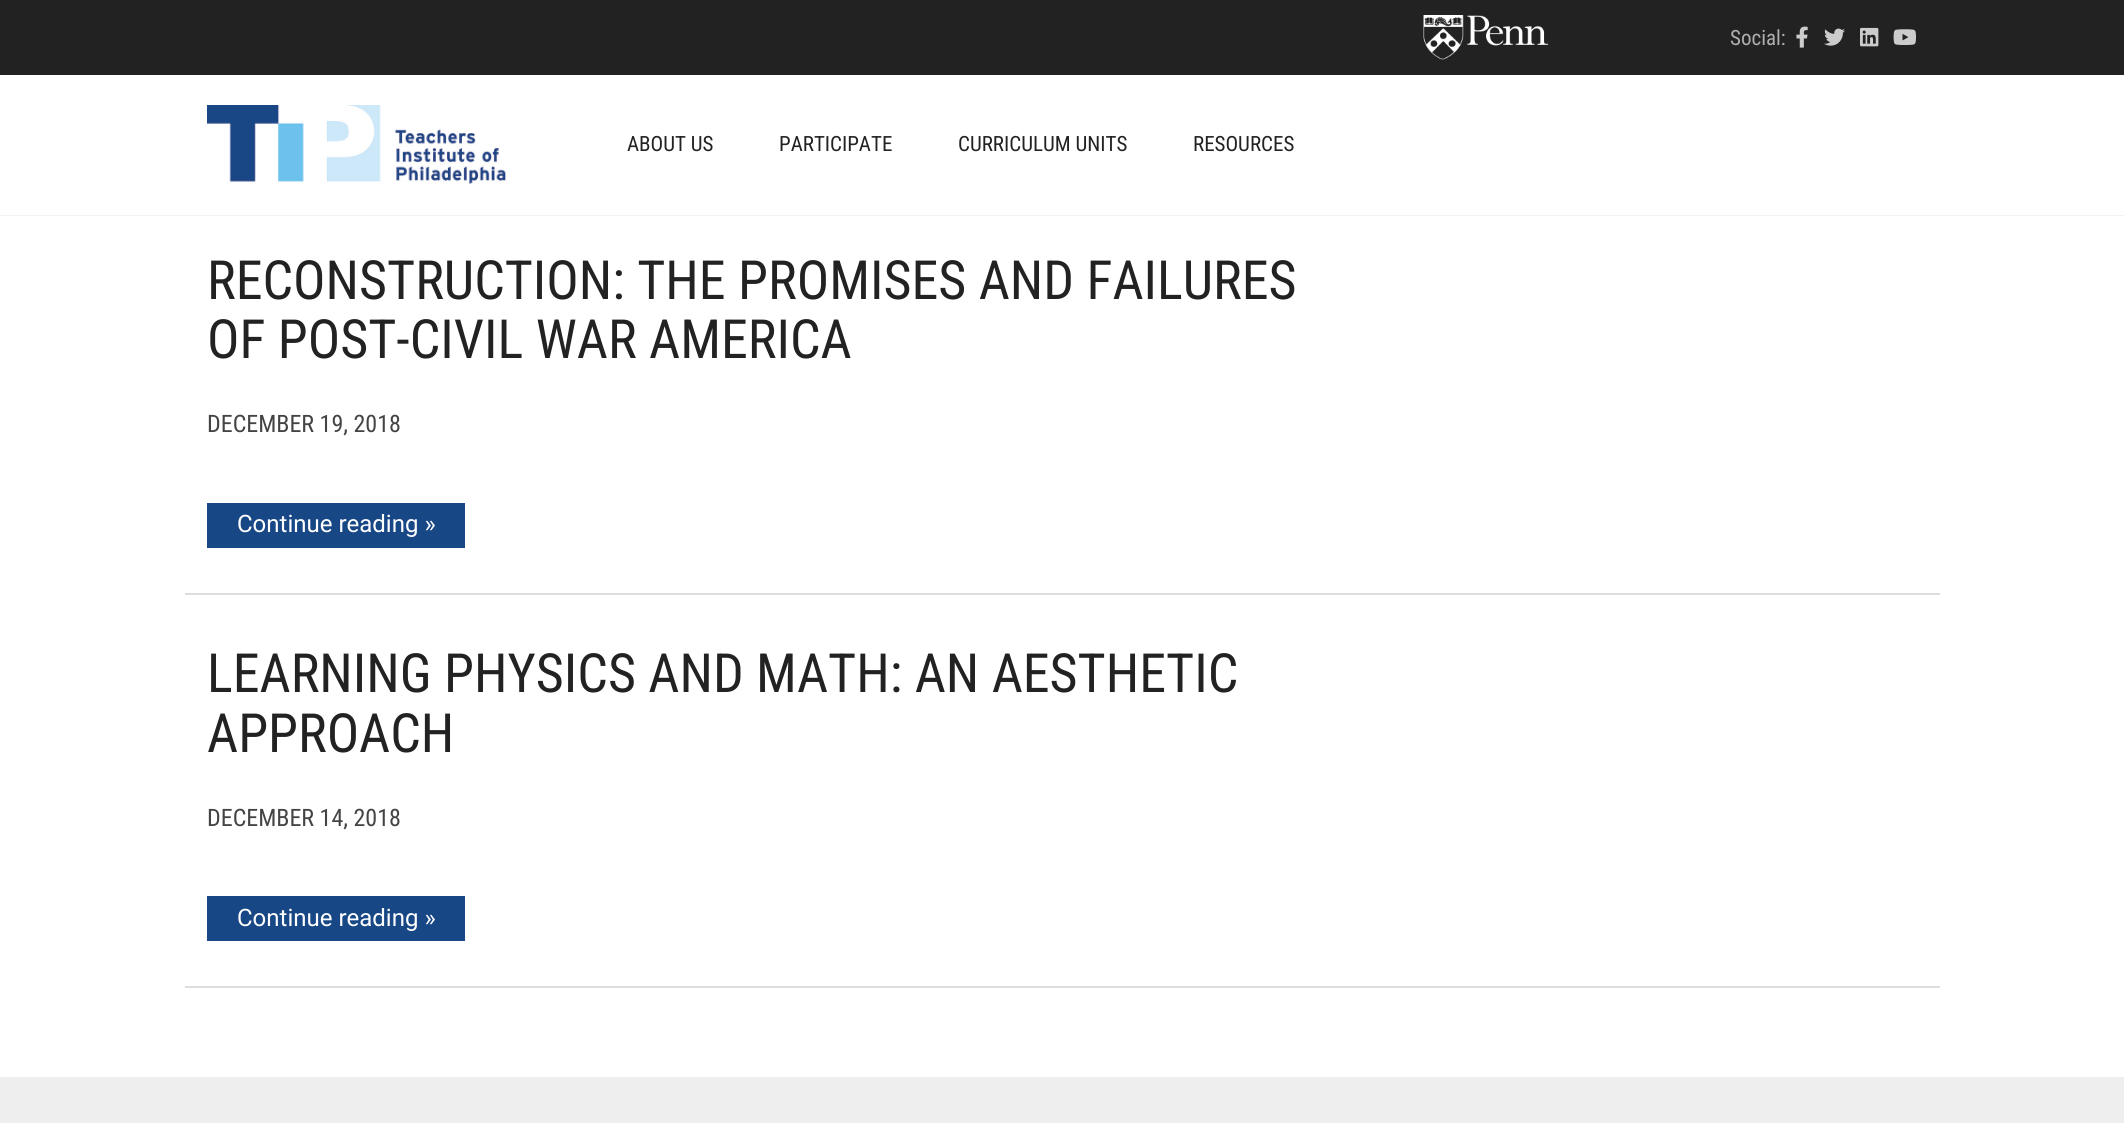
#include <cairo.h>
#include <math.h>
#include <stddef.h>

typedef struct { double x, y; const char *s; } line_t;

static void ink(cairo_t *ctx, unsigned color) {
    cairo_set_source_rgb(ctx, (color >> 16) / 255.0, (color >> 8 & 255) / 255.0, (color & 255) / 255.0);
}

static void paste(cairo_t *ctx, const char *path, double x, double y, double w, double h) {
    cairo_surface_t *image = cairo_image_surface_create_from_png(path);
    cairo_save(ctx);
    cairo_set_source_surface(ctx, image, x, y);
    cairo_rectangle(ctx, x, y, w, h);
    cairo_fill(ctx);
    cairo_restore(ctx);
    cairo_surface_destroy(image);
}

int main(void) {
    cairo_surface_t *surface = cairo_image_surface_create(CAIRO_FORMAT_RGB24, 2124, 1123);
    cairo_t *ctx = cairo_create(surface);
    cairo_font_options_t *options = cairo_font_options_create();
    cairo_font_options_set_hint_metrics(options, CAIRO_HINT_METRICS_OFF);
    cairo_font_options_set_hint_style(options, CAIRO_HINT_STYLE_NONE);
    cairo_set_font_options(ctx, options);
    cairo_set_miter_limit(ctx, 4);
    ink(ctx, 0xFFFFFF);
    cairo_paint(ctx);
    ink(ctx, 0xF2F2F2);
    cairo_rectangle(ctx, 0, 215, 2124, 1);
    cairo_fill(ctx);
    ink(ctx, 0x222222);
    cairo_rectangle(ctx, 0, 0, 2124, 75);
    cairo_fill(ctx);
    paste(ctx, "media/1.png", 1423, 15, 126, 45);
    cairo_select_font_face(ctx, "Roboto Condensed", CAIRO_FONT_SLANT_NORMAL, CAIRO_FONT_WEIGHT_NORMAL);
    cairo_set_font_size(ctx, 21);
    ink(ctx, 0xAFAFAF);
    cairo_move_to(ctx, 1730, 45);
    cairo_show_text(ctx, "Social:");
    paste(ctx, "media/2.png", 1796, 26, 12, 22);
    paste(ctx, "media/3.png", 1824, 28, 21, 18);
    paste(ctx, "media/4.png", 1860, 27, 19, 20);
    paste(ctx, "media/5.png", 1893, 29, 23, 16);
    paste(ctx, "media/6.png", 207, 105, 300, 80);
    ink(ctx, 0x222222);
    {
        static const line_t items[] = {
            {627, 151, "ABOUT US"},
            {779, 151, "PARTICIPATE"},
            {958, 151, "CURRICULUM UNITS"},
            {1193, 151, "RESOURCES"},
        };
        for (size_t i = 0; i < sizeof items / sizeof *items; i++) {
            cairo_move_to(ctx, items[i].x, items[i].y);
            cairo_show_text(ctx, items[i].s);
        }
    }
    ink(ctx, 0xDDDDDD);
    cairo_rectangle(ctx, 185, 593, 1755, 2);
    cairo_fill(ctx);
    cairo_set_font_size(ctx, 54);
    ink(ctx, 0x222222);
    cairo_move_to(ctx, 207, 299);
    cairo_show_text(ctx, "RECONSTRUCTION: THE PROMISES AND FAILURES");
    cairo_move_to(ctx, 207, 358);
    cairo_show_text(ctx, "OF POST-CIVIL WAR AMERICA");
    cairo_set_font_size(ctx, 24);
    ink(ctx, 0x444444);
    cairo_move_to(ctx, 207, 432);
    cairo_show_text(ctx, "DECEMBER 19, 2018");
    ink(ctx, 0x184786);
    cairo_rectangle(ctx, 207, 503, 258, 45);
    cairo_fill(ctx);
    cairo_select_font_face(ctx, "Roboto", CAIRO_FONT_SLANT_NORMAL, CAIRO_FONT_WEIGHT_NORMAL);
    ink(ctx, 0xFFFFFF);
    cairo_move_to(ctx, 237, 532);
    cairo_show_text(ctx, "Continue reading »");
    ink(ctx, 0xDDDDDD);
    cairo_rectangle(ctx, 185, 986, 1755, 2);
    cairo_fill(ctx);
    cairo_select_font_face(ctx, "Roboto Condensed", CAIRO_FONT_SLANT_NORMAL, CAIRO_FONT_WEIGHT_NORMAL);
    cairo_set_font_size(ctx, 54);
    ink(ctx, 0x222222);
    cairo_move_to(ctx, 207, 692);
    cairo_show_text(ctx, "LEARNING PHYSICS AND MATH: AN AESTHETIC");
    cairo_move_to(ctx, 207, 752);
    cairo_show_text(ctx, "APPROACH");
    cairo_set_font_size(ctx, 24);
    ink(ctx, 0x444444);
    cairo_move_to(ctx, 207, 826);
    cairo_show_text(ctx, "DECEMBER 14, 2018");
    ink(ctx, 0x184786);
    cairo_rectangle(ctx, 207, 896, 258, 45);
    cairo_fill(ctx);
    cairo_select_font_face(ctx, "Roboto", CAIRO_FONT_SLANT_NORMAL, CAIRO_FONT_WEIGHT_NORMAL);
    ink(ctx, 0xFFFFFF);
    cairo_move_to(ctx, 237, 926);
    cairo_show_text(ctx, "Continue reading »");
    ink(ctx, 0xEEEEEE);
    cairo_rectangle(ctx, 0, 1077, 2124, 46);
    cairo_fill(ctx);
    cairo_surface_write_to_png(surface, "image.png");
    cairo_font_options_destroy(options);
    cairo_destroy(ctx);
    cairo_surface_destroy(surface);
    return 0;
}
